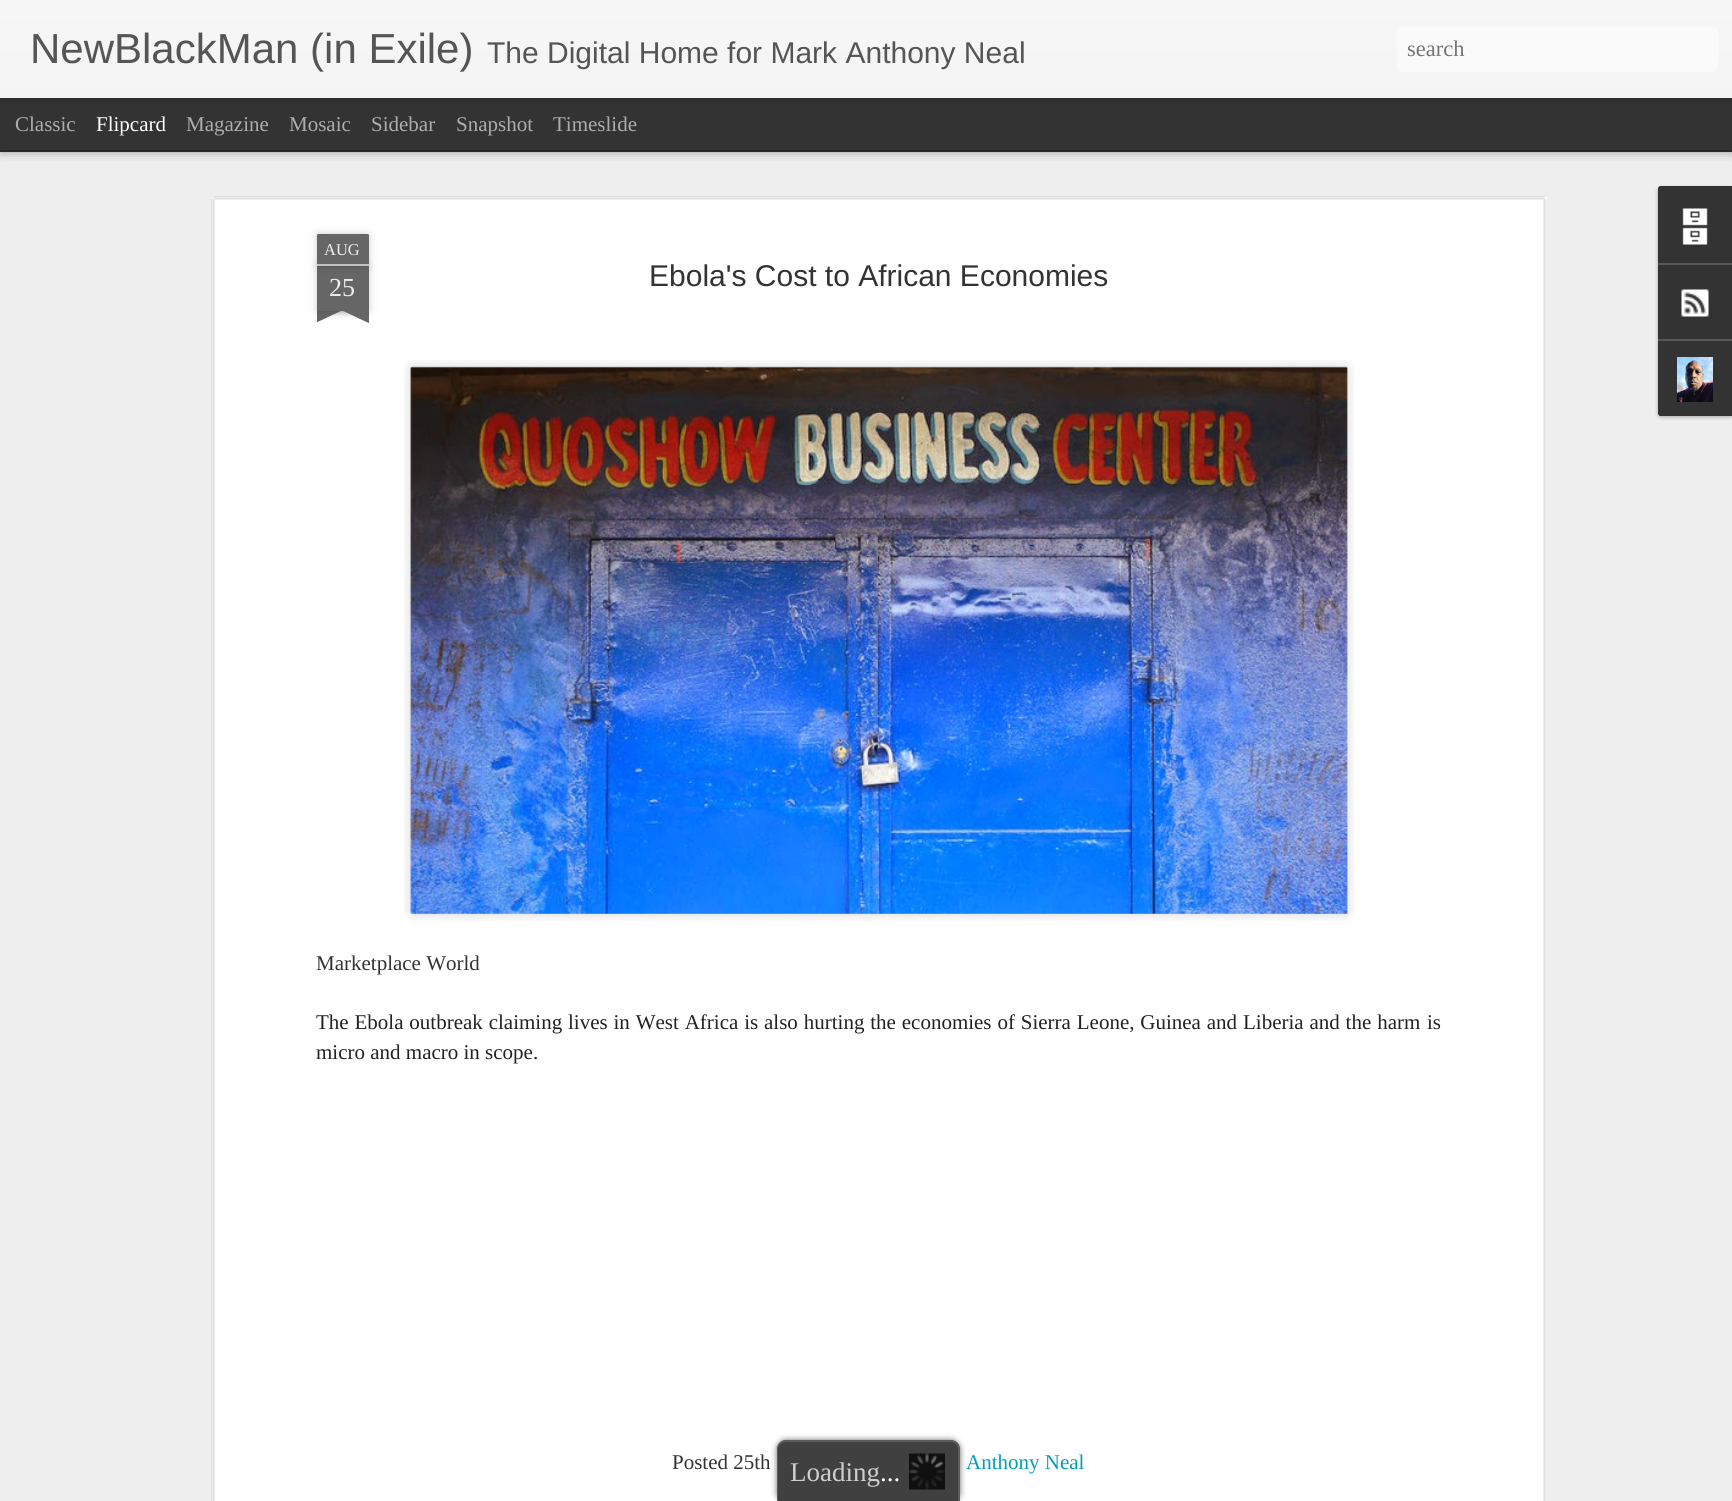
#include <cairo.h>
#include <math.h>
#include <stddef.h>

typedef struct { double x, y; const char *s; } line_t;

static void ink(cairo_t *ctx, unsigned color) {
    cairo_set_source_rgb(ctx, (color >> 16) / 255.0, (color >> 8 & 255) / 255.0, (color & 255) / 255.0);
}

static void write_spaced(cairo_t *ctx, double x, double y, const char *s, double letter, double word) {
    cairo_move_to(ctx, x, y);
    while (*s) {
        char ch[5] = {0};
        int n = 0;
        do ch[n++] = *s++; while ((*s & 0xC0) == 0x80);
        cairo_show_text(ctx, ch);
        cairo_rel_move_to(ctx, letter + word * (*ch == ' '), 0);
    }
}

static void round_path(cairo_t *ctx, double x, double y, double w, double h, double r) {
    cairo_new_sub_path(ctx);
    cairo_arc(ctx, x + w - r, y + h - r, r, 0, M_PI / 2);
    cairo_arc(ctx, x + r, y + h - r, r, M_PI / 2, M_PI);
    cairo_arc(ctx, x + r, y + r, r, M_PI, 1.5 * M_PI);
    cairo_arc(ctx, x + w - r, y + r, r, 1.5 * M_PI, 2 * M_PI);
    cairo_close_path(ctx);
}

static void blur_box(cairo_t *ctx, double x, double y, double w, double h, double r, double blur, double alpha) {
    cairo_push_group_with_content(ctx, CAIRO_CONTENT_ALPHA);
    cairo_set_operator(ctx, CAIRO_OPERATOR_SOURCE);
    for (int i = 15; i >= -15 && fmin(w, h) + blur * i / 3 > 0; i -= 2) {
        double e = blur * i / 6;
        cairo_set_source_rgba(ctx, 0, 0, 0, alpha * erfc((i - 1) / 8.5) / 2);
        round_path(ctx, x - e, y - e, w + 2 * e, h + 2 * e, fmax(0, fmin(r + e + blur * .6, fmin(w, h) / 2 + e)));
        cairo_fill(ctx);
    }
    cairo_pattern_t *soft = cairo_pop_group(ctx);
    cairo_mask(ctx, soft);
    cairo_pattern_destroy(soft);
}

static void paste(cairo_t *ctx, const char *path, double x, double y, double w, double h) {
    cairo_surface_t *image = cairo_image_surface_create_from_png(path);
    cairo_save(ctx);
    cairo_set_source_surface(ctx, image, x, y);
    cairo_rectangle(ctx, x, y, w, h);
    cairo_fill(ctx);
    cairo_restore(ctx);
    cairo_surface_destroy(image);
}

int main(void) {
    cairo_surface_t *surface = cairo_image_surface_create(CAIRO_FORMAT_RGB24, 1732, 1501);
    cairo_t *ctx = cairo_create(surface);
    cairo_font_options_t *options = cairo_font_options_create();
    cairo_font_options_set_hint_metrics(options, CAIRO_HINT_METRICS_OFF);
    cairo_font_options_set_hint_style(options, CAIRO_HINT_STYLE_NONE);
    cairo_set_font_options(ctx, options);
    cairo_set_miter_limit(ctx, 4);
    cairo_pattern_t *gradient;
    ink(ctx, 0x333333);
    cairo_paint(ctx);
    ink(ctx, 0xEEEEEE);
    cairo_rectangle(ctx, 0, 152, 1732, 1349);
    cairo_fill(ctx);
    ink(ctx, 0x000000);
    blur_box(ctx, 0, 98, 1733, 52, 0, 6, 0.5);
    ink(ctx, 0x333333);
    cairo_rectangle(ctx, 0, 98, 1732, 52);
    cairo_fill(ctx);
    ink(ctx, 0x000000);
    blur_box(ctx, 0, 0, 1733, 98, 0, 4, 0.3);
    gradient = cairo_pattern_create_linear(0, 0, 0, 98);
    cairo_pattern_add_color_stop_rgba(gradient, 0, 0.969, 0.969, 0.969, 1);
    cairo_pattern_add_color_stop_rgba(gradient, 1, 0.957, 0.957, 0.957, 1);
    cairo_set_source(ctx, gradient);
    cairo_pattern_destroy(gradient);
    cairo_rectangle(ctx, 0, 0, 1732, 98);
    cairo_fill(ctx);
    cairo_select_font_face(ctx, "Liberation Sans", CAIRO_FONT_SLANT_NORMAL, CAIRO_FONT_WEIGHT_NORMAL);
    cairo_set_font_size(ctx, 42);
    ink(ctx, 0x555555);
    cairo_move_to(ctx, 30, 63);
    cairo_show_text(ctx, "NewBlackMan (in Exile)");
    cairo_set_font_size(ctx, 30);
    cairo_move_to(ctx, 487, 63);
    cairo_show_text(ctx, "The Digital Home for Mark Anthony Neal");
    ink(ctx, 0xFAFAFA);
    round_path(ctx, 1397, 27, 321, 45, 5);
    cairo_fill(ctx);
    cairo_select_font_face(ctx, "Liberation Serif", CAIRO_FONT_SLANT_NORMAL, CAIRO_FONT_WEIGHT_NORMAL);
    cairo_set_font_size(ctx, 22.5);
    ink(ctx, 0x757575);
    cairo_move_to(ctx, 1407, 56);
    cairo_show_text(ctx, "search");
    cairo_set_font_size(ctx, 21);
    ink(ctx, 0xADADAD);
    cairo_move_to(ctx, 15, 131);
    cairo_show_text(ctx, "Classic");
    ink(ctx, 0xFFFFFF);
    cairo_move_to(ctx, 96, 131);
    cairo_show_text(ctx, "Flipcard");
    ink(ctx, 0xADADAD);
    {
        static const line_t items[] = {
            {186, 131, "Magazine"},
            {289, 131, "Mosaic"},
            {371, 131, "Sidebar"},
            {456, 131, "Snapshot"},
            {553, 131, "Timeslide"},
        };
        for (size_t i = 0; i < sizeof items / sizeof *items; i++) {
            cairo_move_to(ctx, items[i].x, items[i].y);
            cairo_show_text(ctx, items[i].s);
        }
    }
    ink(ctx, 0xFFFFFF);
    cairo_rectangle(ctx, 212, 197, 1335, 1304);
    cairo_fill(ctx);
    paste(ctx, "media/1.png", 211, 196, 1336, 1305);
    ink(ctx, 0x000000);
    blur_box(ctx, 317, 266, 52, 45, 0, 4, 0.2);
    ink(ctx, 0x666666);
    cairo_rectangle(ctx, 317, 266, 52, 45);
    cairo_fill(ctx);
    ink(ctx, 0x000000);
    blur_box(ctx, 317, 234, 52, 32, 1.5, 4, 0.2);
    ink(ctx, 0x666666);
    cairo_new_path(ctx);
    cairo_move_to(ctx, 318.5, 234);
    cairo_line_to(ctx, 367.5, 234);
    cairo_curve_to(ctx, 368.5, 234, 369, 234.5, 369, 235.5);
    cairo_line_to(ctx, 369, 266);
    cairo_line_to(ctx, 317, 266);
    cairo_line_to(ctx, 317, 235.5);
    cairo_curve_to(ctx, 317, 234.5, 317.5, 234, 318.5, 234);
    cairo_close_path(ctx);
    cairo_fill(ctx);
    ink(ctx, 0xC2C2C2);
    cairo_rectangle(ctx, 317, 264, 52, 2);
    cairo_fill(ctx);
    cairo_set_font_size(ctx, 16.5);
    ink(ctx, 0xEEEEEE);
    cairo_move_to(ctx, 324, 255);
    cairo_show_text(ctx, "AUG");
    cairo_set_font_size(ctx, 26);
    cairo_move_to(ctx, 329, 296);
    cairo_show_text(ctx, "25");
    cairo_save(ctx);
    cairo_rectangle(ctx, 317, 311, 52, 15);
    cairo_clip(ctx);
    ink(ctx, 0x000000);
    blur_box(ctx, 303, 296, 75, 15, 0, 4, 0.2);
    cairo_restore(ctx);
    cairo_save(ctx);
    cairo_rectangle(ctx, 317, 311, 52, 15);
    cairo_clip(ctx);
    ink(ctx, 0x666666);
    cairo_new_path(ctx);
    cairo_move_to(ctx, 303, 312);
    cairo_line_to(ctx, 371, 280);
    cairo_line_to(ctx, 377, 294);
    cairo_line_to(ctx, 309, 326);
    cairo_close_path(ctx);
    cairo_fill(ctx);
    cairo_restore(ctx);
    cairo_save(ctx);
    cairo_rectangle(ctx, 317, 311, 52, 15);
    cairo_clip(ctx);
    ink(ctx, 0x000000);
    blur_box(ctx, 308, 296, 75, 15, 0, 4, 0.2);
    cairo_restore(ctx);
    cairo_save(ctx);
    cairo_rectangle(ctx, 317, 311, 52, 15);
    cairo_clip(ctx);
    ink(ctx, 0x666666);
    cairo_new_path(ctx);
    cairo_move_to(ctx, 313, 280);
    cairo_line_to(ctx, 381, 312);
    cairo_line_to(ctx, 375, 326);
    cairo_line_to(ctx, 307, 294);
    cairo_close_path(ctx);
    cairo_fill(ctx);
    cairo_restore(ctx);
    cairo_select_font_face(ctx, "Liberation Sans", CAIRO_FONT_SLANT_NORMAL, CAIRO_FONT_WEIGHT_NORMAL);
    cairo_set_font_size(ctx, 30);
    ink(ctx, 0x333333);
    cairo_move_to(ctx, 649, 286);
    cairo_show_text(ctx, "Ebola's Cost to African Economies");
    paste(ctx, "media/2.png", 404, 360, 950, 561);
    paste(ctx, "media/3.png", 410, 366, 938, 548);
    cairo_select_font_face(ctx, "Liberation Serif", CAIRO_FONT_SLANT_NORMAL, CAIRO_FONT_WEIGHT_NORMAL);
    cairo_set_font_size(ctx, 21);
    cairo_move_to(ctx, 316, 970);
    cairo_show_text(ctx, "Marketplace World");
    ink(ctx, 0x222222);
    write_spaced(ctx, 316, 1029, "The Ebola outbreak claiming lives in West Africa is also hurting the economies of Sierra Leone, Guinea and Liberia and the harm", 0, 0.6);
    cairo_move_to(ctx, 1427, 1029);
    cairo_show_text(ctx, "is");
    cairo_move_to(ctx, 316, 1059);
    cairo_show_text(ctx, "micro and macro in scope.");
    ink(ctx, 0x333333);
    cairo_move_to(ctx, 672, 1469);
    cairo_show_text(ctx, "Posted 25th");
    ink(ctx, 0x009EB8);
    cairo_move_to(ctx, 966, 1469);
    cairo_show_text(ctx, "Anthony Neal");
    ink(ctx, 0x000000);
    blur_box(ctx, 1658, 188, 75, 229, 3, 2, 0.3);
    ink(ctx, 0x333333);
    cairo_new_path(ctx);
    cairo_move_to(ctx, 1661, 186);
    cairo_line_to(ctx, 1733, 186);
    cairo_line_to(ctx, 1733, 416);
    cairo_line_to(ctx, 1661, 416);
    cairo_curve_to(ctx, 1659.5, 416, 1658, 414.5, 1658, 413);
    cairo_line_to(ctx, 1658, 189);
    cairo_curve_to(ctx, 1658, 187.5, 1659.5, 186, 1661, 186);
    cairo_close_path(ctx);
    cairo_fill(ctx);
    cairo_new_path(ctx);
    cairo_move_to(ctx, 1661, 186);
    cairo_line_to(ctx, 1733, 186);
    cairo_line_to(ctx, 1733, 263);
    cairo_line_to(ctx, 1658, 263);
    cairo_line_to(ctx, 1658, 189);
    cairo_curve_to(ctx, 1658, 187.5, 1659.5, 186, 1661, 186);
    cairo_close_path(ctx);
    cairo_fill(ctx);
    paste(ctx, "media/4.png", 1682, 208, 26, 37);
    ink(ctx, 0x585858);
    cairo_rectangle(ctx, 1658, 263, 74, 2);
    cairo_fill(ctx);
    paste(ctx, "media/5.png", 1681, 289, 28, 28);
    ink(ctx, 0x333333);
    cairo_new_path(ctx);
    cairo_move_to(ctx, 1658, 339);
    cairo_line_to(ctx, 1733, 339);
    cairo_line_to(ctx, 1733, 416);
    cairo_line_to(ctx, 1661, 416);
    cairo_curve_to(ctx, 1659.5, 416, 1658, 414.5, 1658, 413);
    cairo_close_path(ctx);
    cairo_fill(ctx);
    ink(ctx, 0x585858);
    cairo_rectangle(ctx, 1658, 339, 74, 2);
    cairo_fill(ctx);
    paste(ctx, "media/6.png", 1677, 357, 36, 45);
    cairo_save(ctx);
    cairo_set_fill_rule(ctx, CAIRO_FILL_RULE_EVEN_ODD);
    cairo_new_path(ctx);
    cairo_move_to(ctx, 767, 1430);
    cairo_line_to(ctx, 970, 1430);
    cairo_line_to(ctx, 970, 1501);
    cairo_line_to(ctx, 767, 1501);
    cairo_close_path(ctx);
    cairo_move_to(ctx, 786, 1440);
    cairo_line_to(ctx, 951, 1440);
    cairo_curve_to(ctx, 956, 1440, 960, 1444, 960, 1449);
    cairo_line_to(ctx, 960, 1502);
    cairo_line_to(ctx, 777, 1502);
    cairo_line_to(ctx, 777, 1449);
    cairo_curve_to(ctx, 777, 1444, 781, 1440, 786, 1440);
    cairo_close_path(ctx);
    cairo_clip(ctx);
    ink(ctx, 0x333333);
    blur_box(ctx, 777, 1440, 183, 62, 9, 3, 0.75);
    cairo_restore(ctx);
    cairo_set_source_rgba(ctx, 0, 0, 0, 0.75);
    cairo_new_path(ctx);
    cairo_move_to(ctx, 786, 1440);
    cairo_line_to(ctx, 951, 1440);
    cairo_curve_to(ctx, 956, 1440, 960, 1444, 960, 1449);
    cairo_line_to(ctx, 960, 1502);
    cairo_line_to(ctx, 777, 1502);
    cairo_line_to(ctx, 777, 1449);
    cairo_curve_to(ctx, 777, 1444, 781, 1440, 786, 1440);
    cairo_close_path(ctx);
    cairo_fill(ctx);
    cairo_set_source_rgba(ctx, 0.4, 0.4, 0.4, 0.75);
    cairo_set_fill_rule(ctx, CAIRO_FILL_RULE_EVEN_ODD);
    cairo_new_path(ctx);
    cairo_move_to(ctx, 786, 1440);
    cairo_line_to(ctx, 951, 1440);
    cairo_curve_to(ctx, 956, 1440, 960, 1444, 960, 1449);
    cairo_line_to(ctx, 960, 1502);
    cairo_line_to(ctx, 777, 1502);
    cairo_line_to(ctx, 777, 1449);
    cairo_curve_to(ctx, 777, 1444, 781, 1440, 786, 1440);
    cairo_close_path(ctx);
    cairo_move_to(ctx, 786, 1442);
    cairo_line_to(ctx, 951, 1442);
    cairo_curve_to(ctx, 955, 1442, 958, 1445, 958, 1449);
    cairo_line_to(ctx, 958, 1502);
    cairo_line_to(ctx, 778, 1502);
    cairo_line_to(ctx, 778, 1449);
    cairo_curve_to(ctx, 778, 1445, 782, 1442, 786, 1442);
    cairo_close_path(ctx);
    cairo_fill(ctx);
    paste(ctx, "media/7.png", 909, 1453, 36, 37);
    cairo_set_font_size(ctx, 27);
    ink(ctx, 0xCECECE);
    cairo_move_to(ctx, 790, 1481);
    cairo_show_text(ctx, "Loading");
    ink(ctx, 0xFFFFFF);
    cairo_move_to(ctx, 880, 1481);
    cairo_show_text(ctx, "...");
    cairo_surface_write_to_png(surface, "image.png");
    cairo_font_options_destroy(options);
    cairo_destroy(ctx);
    cairo_surface_destroy(surface);
    return 0;
}
